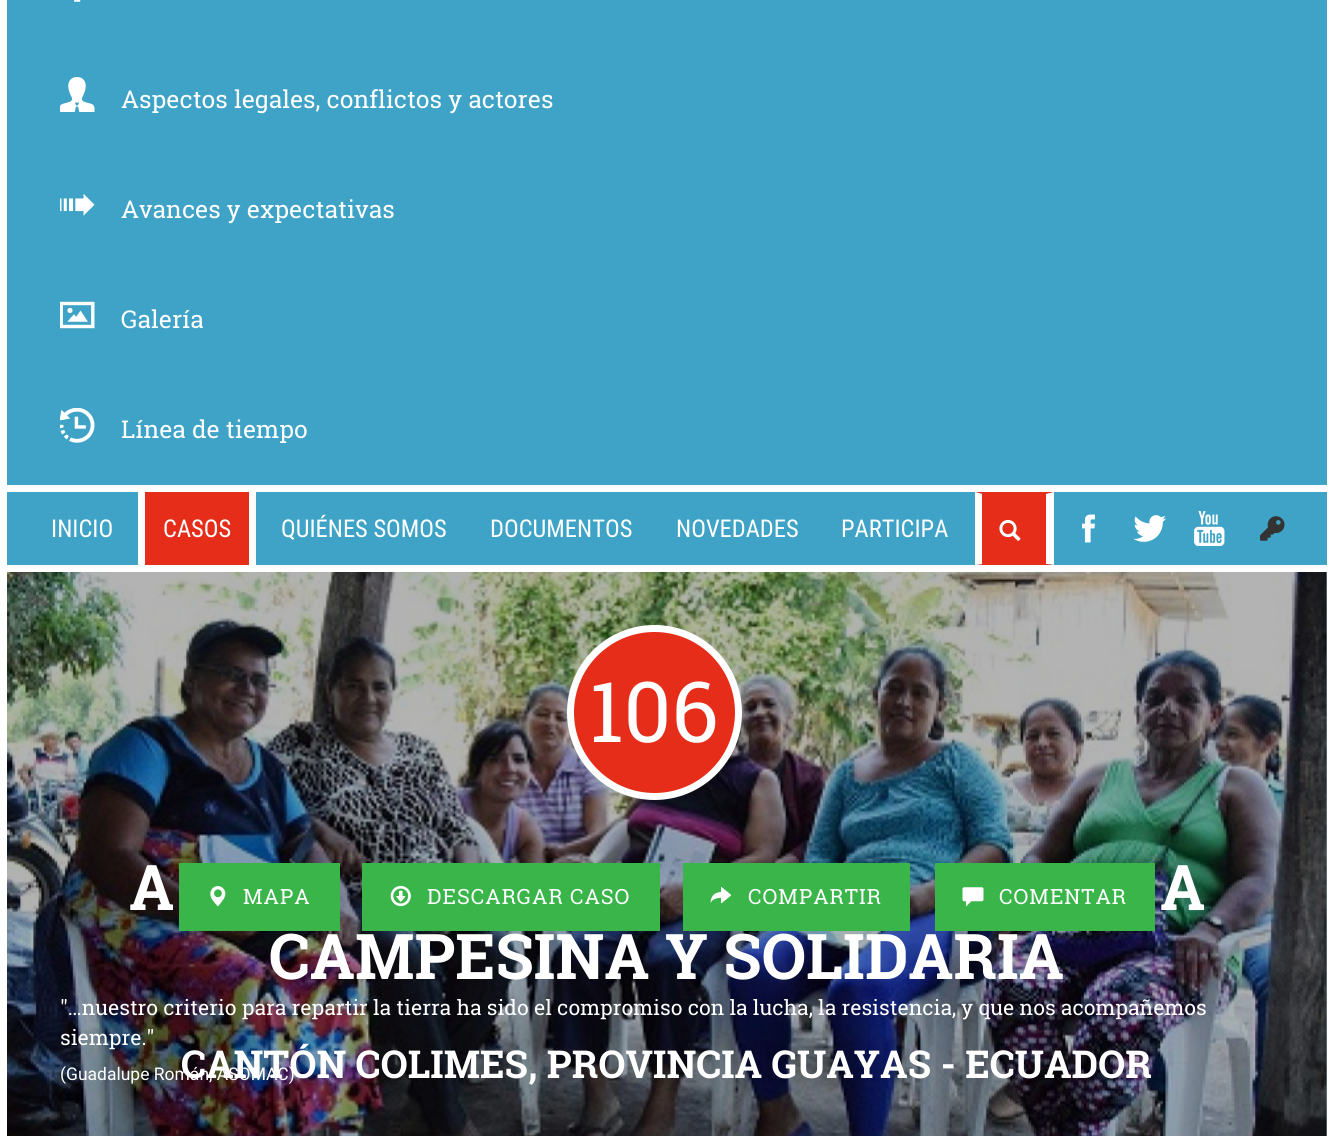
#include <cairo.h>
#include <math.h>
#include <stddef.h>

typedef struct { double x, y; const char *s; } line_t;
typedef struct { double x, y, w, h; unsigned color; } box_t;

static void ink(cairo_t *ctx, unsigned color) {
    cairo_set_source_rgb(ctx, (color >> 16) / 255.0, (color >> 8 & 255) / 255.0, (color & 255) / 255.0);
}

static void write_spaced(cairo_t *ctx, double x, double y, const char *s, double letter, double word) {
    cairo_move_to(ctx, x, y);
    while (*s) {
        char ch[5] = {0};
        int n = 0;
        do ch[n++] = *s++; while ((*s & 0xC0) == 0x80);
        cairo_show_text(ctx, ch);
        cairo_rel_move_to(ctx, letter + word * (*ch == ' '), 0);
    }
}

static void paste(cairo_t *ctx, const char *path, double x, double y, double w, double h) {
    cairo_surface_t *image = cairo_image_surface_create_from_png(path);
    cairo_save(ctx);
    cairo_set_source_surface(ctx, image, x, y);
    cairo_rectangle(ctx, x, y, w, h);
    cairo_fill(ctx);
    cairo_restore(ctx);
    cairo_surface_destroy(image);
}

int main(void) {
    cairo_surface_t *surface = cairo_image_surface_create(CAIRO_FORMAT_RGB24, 1332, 1136);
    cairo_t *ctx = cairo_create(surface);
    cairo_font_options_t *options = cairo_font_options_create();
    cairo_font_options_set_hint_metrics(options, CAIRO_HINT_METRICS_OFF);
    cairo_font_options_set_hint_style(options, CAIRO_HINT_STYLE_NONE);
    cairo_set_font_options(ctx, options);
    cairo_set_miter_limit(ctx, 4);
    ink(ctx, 0xB3E0F2);
    cairo_paint(ctx);
    {
        static const box_t items[] = {
            {1327, 0, 5, 1136, 0xFFFFFF},
            {0, 0, 7, 1136, 0xFFFFFF},
            {7, 0, 1320, 485, 0x3EA3C6},
        };
        for (size_t i = 0; i < sizeof items / sizeof *items; i++) {
            ink(ctx, items[i].color);
            cairo_rectangle(ctx, items[i].x, items[i].y, items[i].w, items[i].h);
            cairo_fill(ctx);
        }
    }
    paste(ctx, "media/1.png", 74, 0, 7, 2);
    paste(ctx, "media/2.png", 60, 77, 35, 35);
    cairo_select_font_face(ctx, "Roboto Slab", CAIRO_FONT_SLANT_NORMAL, CAIRO_FONT_WEIGHT_NORMAL);
    cairo_set_font_size(ctx, 24.5);
    ink(ctx, 0xFFFFFF);
    cairo_move_to(ctx, 121, 108);
    cairo_show_text(ctx, "Aspectos legales, conflictos y actores");
    paste(ctx, "media/3.png", 60, 193, 35, 23);
    cairo_move_to(ctx, 121, 218);
    cairo_show_text(ctx, "Avances y expectativas");
    paste(ctx, "media/4.png", 60, 301, 35, 28);
    cairo_move_to(ctx, 121, 328);
    cairo_show_text(ctx, "Galería");
    paste(ctx, "media/5.png", 60, 408, 35, 35);
    cairo_move_to(ctx, 121, 438);
    cairo_show_text(ctx, "Línea de tiempo");
    {
        static const box_t items[] = {
            {7, 492, 1320, 73, 0x3EA3C6},
            {7, 485, 1320, 7, 0xFFFFFF},
            {7, 565, 1320, 7, 0xFFFFFF},
        };
        for (size_t i = 0; i < sizeof items / sizeof *items; i++) {
            ink(ctx, items[i].color);
            cairo_rectangle(ctx, items[i].x, items[i].y, items[i].w, items[i].h);
            cairo_fill(ctx);
        }
    }
    cairo_select_font_face(ctx, "Roboto Condensed", CAIRO_FONT_SLANT_NORMAL, CAIRO_FONT_WEIGHT_NORMAL);
    cairo_move_to(ctx, 51, 537);
    cairo_show_text(ctx, "INICIO");
    {
        static const box_t items[] = {
            {145, 492, 104, 73, 0xE52D1A},
            {249, 492, 7, 73, 0xFFFFFF},
            {138, 492, 7, 73, 0xFFFFFF},
        };
        for (size_t i = 0; i < sizeof items / sizeof *items; i++) {
            ink(ctx, items[i].color);
            cairo_rectangle(ctx, items[i].x, items[i].y, items[i].w, items[i].h);
            cairo_fill(ctx);
        }
    }
    {
        static const line_t items[] = {
            {163, 537, "CASOS"},
            {281, 537, "QUIÉNES SOMOS"},
            {490, 537, "DOCUMENTOS"},
            {676, 537, "NOVEDADES"},
            {841, 537, "PARTICIPA"},
        };
        for (size_t i = 0; i < sizeof items / sizeof *items; i++) {
            cairo_move_to(ctx, items[i].x, items[i].y);
            cairo_show_text(ctx, items[i].s);
        }
    }
    ink(ctx, 0xE52D1A);
    cairo_rectangle(ctx, 982, 494, 64, 70);
    cairo_fill(ctx);
    cairo_new_path(ctx);
    cairo_move_to(ctx, 975, 492);
    cairo_line_to(ctx, 1054, 492);
    cairo_line_to(ctx, 1046, 494);
    cairo_line_to(ctx, 982, 494);
    cairo_close_path(ctx);
    cairo_fill(ctx);
    ink(ctx, 0xFFFFFF);
    cairo_new_path(ctx);
    cairo_move_to(ctx, 1054, 492);
    cairo_line_to(ctx, 1054, 565);
    cairo_line_to(ctx, 1046, 564);
    cairo_line_to(ctx, 1046, 494);
    cairo_close_path(ctx);
    cairo_fill(ctx);
    ink(ctx, 0xE52D1A);
    cairo_new_path(ctx);
    cairo_move_to(ctx, 1054, 565);
    cairo_line_to(ctx, 975, 565);
    cairo_line_to(ctx, 982, 564);
    cairo_line_to(ctx, 1046, 564);
    cairo_close_path(ctx);
    cairo_fill(ctx);
    ink(ctx, 0xFFFFFF);
    cairo_new_path(ctx);
    cairo_move_to(ctx, 975, 565);
    cairo_line_to(ctx, 975, 492);
    cairo_line_to(ctx, 982, 494);
    cairo_line_to(ctx, 982, 564);
    cairo_close_path(ctx);
    cairo_fill(ctx);
    paste(ctx, "media/6.png", 999, 519, 22, 22);
    paste(ctx, "media/7.png", 1082, 514, 13, 29);
    paste(ctx, "media/8.png", 1133, 515, 33, 27);
    paste(ctx, "media/9.png", 1194, 511, 31, 35);
    paste(ctx, "media/10.png", 1260, 516, 25, 25);
    paste(ctx, "media/11.png", 7, 572, 1320, 564);
    cairo_set_source_rgba(ctx, 0, 0, 0, 0.3);
    cairo_rectangle(ctx, 7, 572, 1320, 564);
    cairo_fill(ctx);
    ink(ctx, 0xE52D1A);
    cairo_arc(ctx, 654.5, 712.5, 84, 0, 2 * M_PI);
    cairo_fill_preserve(ctx);
    ink(ctx, 0xFFFFFF);
    cairo_set_line_width(ctx, 7);
    cairo_stroke(ctx);
    cairo_select_font_face(ctx, "Roboto Slab", CAIRO_FONT_SLANT_NORMAL, CAIRO_FONT_WEIGHT_NORMAL);
    cairo_set_font_size(ctx, 84);
    cairo_move_to(ctx, 589, 742);
    cairo_show_text(ctx, "106");
    cairo_select_font_face(ctx, "Roboto Slab", CAIRO_FONT_SLANT_NORMAL, CAIRO_FONT_WEIGHT_BOLD);
    cairo_set_font_size(ctx, 63);
    {
        static const line_t items[] = {
            {129, 910, "A"},
            {1160, 910, "A"},
            {269, 979, "CAMPESINA Y SOLIDARIA"},
        };
        for (size_t i = 0; i < sizeof items / sizeof *items; i++) {
            cairo_move_to(ctx, items[i].x, items[i].y);
            cairo_show_text(ctx, items[i].s);
        }
    }
    cairo_set_font_size(ctx, 38.5);
    cairo_move_to(ctx, 181, 1078);
    cairo_show_text(ctx, "CANTÓN COLIMES, PROVINCIA GUAYAS - ECUADOR");
    ink(ctx, 0x39B54A);
    cairo_rectangle(ctx, 179, 863, 161, 68);
    cairo_fill(ctx);
    paste(ctx, "media/12.png", 210, 886, 16, 21);
    cairo_select_font_face(ctx, "Roboto Slab", CAIRO_FONT_SLANT_NORMAL, CAIRO_FONT_WEIGHT_NORMAL);
    cairo_set_font_size(ctx, 21);
    ink(ctx, 0xFFFFFF);
    write_spaced(ctx, 243, 904, "MAPA", 1, 0);
    ink(ctx, 0x39B54A);
    cairo_rectangle(ctx, 362, 863, 298, 68);
    cairo_fill(ctx);
    paste(ctx, "media/13.png", 390, 885, 21, 22);
    ink(ctx, 0xFFFFFF);
    write_spaced(ctx, 427, 904, "DESCARGAR CASO", 1, 0);
    ink(ctx, 0x39B54A);
    cairo_rectangle(ctx, 683, 863, 227, 68);
    cairo_fill(ctx);
    paste(ctx, "media/14.png", 710, 887, 22, 17);
    ink(ctx, 0xFFFFFF);
    write_spaced(ctx, 748, 904, "COMPARTIR", 1, 0);
    ink(ctx, 0x39B54A);
    cairo_rectangle(ctx, 935, 863, 220, 68);
    cairo_fill(ctx);
    paste(ctx, "media/15.png", 962, 887, 22, 20);
    ink(ctx, 0xFFFFFF);
    write_spaced(ctx, 999, 904, "COMENTAR", 1, 0);
    cairo_move_to(ctx, 60, 1015);
    cairo_show_text(ctx, "\"…nuestro criterio para repartir la tierra ha sido el compromiso con la lucha, la resistencia, y que nos acompañemos");
    cairo_move_to(ctx, 60, 1045);
    cairo_show_text(ctx, "siempre.\"");
    cairo_select_font_face(ctx, "Roboto", CAIRO_FONT_SLANT_NORMAL, CAIRO_FONT_WEIGHT_NORMAL);
    cairo_set_font_size(ctx, 17.5);
    cairo_move_to(ctx, 60, 1080);
    cairo_show_text(ctx, "(Guadalupe Román, ASOMAC)");
    cairo_surface_write_to_png(surface, "image.png");
    cairo_font_options_destroy(options);
    cairo_destroy(ctx);
    cairo_surface_destroy(surface);
    return 0;
}
